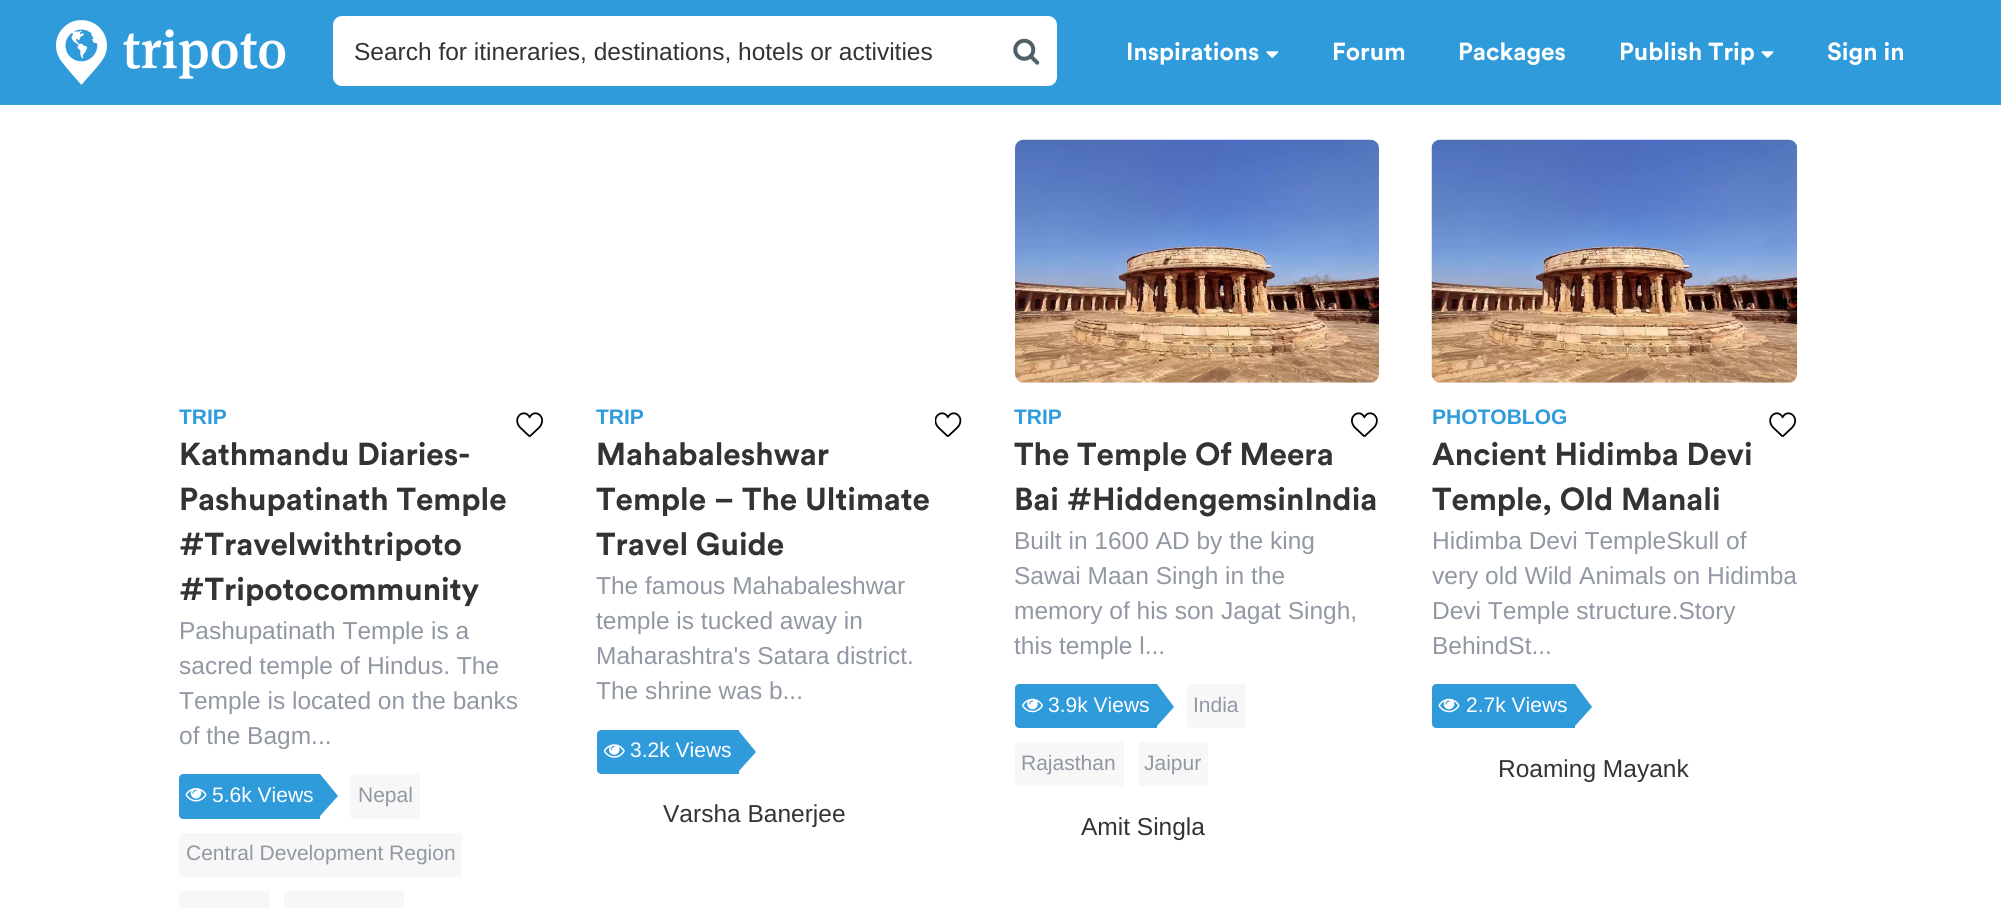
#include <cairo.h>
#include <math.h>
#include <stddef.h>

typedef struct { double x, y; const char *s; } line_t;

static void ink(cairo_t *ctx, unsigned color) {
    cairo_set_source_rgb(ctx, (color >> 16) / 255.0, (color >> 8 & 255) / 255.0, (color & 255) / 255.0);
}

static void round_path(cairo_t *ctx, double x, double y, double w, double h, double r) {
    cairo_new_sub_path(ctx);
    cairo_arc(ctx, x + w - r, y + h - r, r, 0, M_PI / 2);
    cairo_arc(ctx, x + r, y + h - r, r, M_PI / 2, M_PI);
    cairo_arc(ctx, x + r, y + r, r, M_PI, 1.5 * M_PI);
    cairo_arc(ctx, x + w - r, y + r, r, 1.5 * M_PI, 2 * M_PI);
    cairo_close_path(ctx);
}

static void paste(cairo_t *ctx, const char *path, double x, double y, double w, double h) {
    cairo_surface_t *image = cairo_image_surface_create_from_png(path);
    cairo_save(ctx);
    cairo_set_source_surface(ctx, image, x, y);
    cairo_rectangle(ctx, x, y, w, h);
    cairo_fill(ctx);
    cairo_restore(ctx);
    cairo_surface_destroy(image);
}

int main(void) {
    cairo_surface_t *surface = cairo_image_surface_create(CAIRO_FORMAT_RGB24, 2001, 908);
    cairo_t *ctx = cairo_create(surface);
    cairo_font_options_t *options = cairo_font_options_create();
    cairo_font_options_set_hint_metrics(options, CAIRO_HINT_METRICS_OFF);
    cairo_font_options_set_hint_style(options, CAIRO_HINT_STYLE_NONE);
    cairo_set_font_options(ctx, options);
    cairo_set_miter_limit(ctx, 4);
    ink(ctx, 0xFFFFFF);
    cairo_paint(ctx);
    ink(ctx, 0x2F9BDB);
    cairo_rectangle(ctx, 0, 0, 2001, 105);
    cairo_fill(ctx);
    paste(ctx, "media/1.png", 56, 20, 230, 65);
    ink(ctx, 0xFFFFFF);
    round_path(ctx, 333, 16, 724, 70, 9);
    cairo_fill(ctx);
    cairo_select_font_face(ctx, "Liberation Sans", CAIRO_FONT_SLANT_NORMAL, CAIRO_FONT_WEIGHT_NORMAL);
    cairo_set_font_size(ctx, 24.5);
    ink(ctx, 0x333333);
    cairo_move_to(ctx, 354, 60);
    cairo_show_text(ctx, "Search for itineraries, destinations, hotels or activities");
    paste(ctx, "media/2.png", 1013, 38, 27, 27);
    cairo_select_font_face(ctx, "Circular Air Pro", CAIRO_FONT_SLANT_NORMAL, CAIRO_FONT_WEIGHT_BOLD);
    ink(ctx, 0xFFFFFF);
    cairo_move_to(ctx, 1126, 60);
    cairo_show_text(ctx, "Inspirations");
    paste(ctx, "media/3.png", 1266, 51, 13, 7);
    {
        static const line_t items[] = {
            {1332, 60, "Forum"},
            {1458, 60, "Packages"},
            {1619, 60, "Publish Trip"},
        };
        for (size_t i = 0; i < sizeof items / sizeof *items; i++) {
            cairo_move_to(ctx, items[i].x, items[i].y);
            cairo_show_text(ctx, items[i].s);
        }
    }
    paste(ctx, "media/4.png", 1761, 51, 13, 7);
    cairo_move_to(ctx, 1827, 60);
    cairo_show_text(ctx, "Sign in");
    cairo_select_font_face(ctx, "Liberation Sans", CAIRO_FONT_SLANT_NORMAL, CAIRO_FONT_WEIGHT_BOLD);
    cairo_set_font_size(ctx, 21);
    ink(ctx, 0x2F9BDB);
    cairo_move_to(ctx, 179, 424);
    cairo_show_text(ctx, "TRIP");
    paste(ctx, "media/5.png", 516, 412, 28, 26);
    cairo_select_font_face(ctx, "Circular Air Pro", CAIRO_FONT_SLANT_NORMAL, CAIRO_FONT_WEIGHT_BOLD);
    cairo_set_font_size(ctx, 31.5);
    ink(ctx, 0x333333);
    {
        static const line_t items[] = {
            {179, 465, "Kathmandu Diaries-"},
            {179, 510, "Pashupatinath Temple"},
            {179, 555, "#Travelwithtripoto"},
            {179, 600, "#Tripotocommunity"},
        };
        for (size_t i = 0; i < sizeof items / sizeof *items; i++) {
            cairo_move_to(ctx, items[i].x, items[i].y);
            cairo_show_text(ctx, items[i].s);
        }
    }
    cairo_select_font_face(ctx, "Liberation Sans", CAIRO_FONT_SLANT_NORMAL, CAIRO_FONT_WEIGHT_NORMAL);
    cairo_set_font_size(ctx, 24.5);
    ink(ctx, 0x9197A3);
    {
        static const line_t items[] = {
            {179, 639, "Pashupatinath Temple is a"},
            {179, 674, "sacred temple of Hindus. The"},
            {179, 709, "Temple is located on the banks"},
            {179, 744, "of the Bagm..."},
        };
        for (size_t i = 0; i < sizeof items / sizeof *items; i++) {
            cairo_move_to(ctx, items[i].x, items[i].y);
            cairo_show_text(ctx, items[i].s);
        }
    }
    ink(ctx, 0x2F9BDB);
    cairo_new_path(ctx);
    cairo_move_to(ctx, 183, 774);
    cairo_line_to(ctx, 320, 774);
    cairo_line_to(ctx, 320, 819);
    cairo_line_to(ctx, 183, 819);
    cairo_curve_to(ctx, 181, 819, 179, 817, 179, 815);
    cairo_line_to(ctx, 179, 778);
    cairo_curve_to(ctx, 179, 776, 181, 774, 183, 774);
    cairo_close_path(ctx);
    cairo_fill(ctx);
    paste(ctx, "media/6.png", 185, 788, 22, 14);
    cairo_set_font_size(ctx, 21);
    ink(ctx, 0xFFFFFF);
    cairo_move_to(ctx, 212, 802);
    cairo_show_text(ctx, "5.6k Views");
    ink(ctx, 0x2F9BDB);
    cairo_new_path(ctx);
    cairo_move_to(ctx, 320, 816);
    cairo_line_to(ctx, 320, 774);
    cairo_line_to(ctx, 338, 796);
    cairo_close_path(ctx);
    cairo_fill(ctx);
    ink(ctx, 0xF7F7F7);
    cairo_new_path(ctx);
    cairo_move_to(ctx, 354, 774);
    cairo_line_to(ctx, 420, 774);
    cairo_line_to(ctx, 420, 819);
    cairo_line_to(ctx, 354, 819);
    cairo_curve_to(ctx, 352, 819, 350, 817, 350, 815);
    cairo_line_to(ctx, 350, 778);
    cairo_curve_to(ctx, 350, 776, 352, 774, 354, 774);
    cairo_close_path(ctx);
    cairo_fill(ctx);
    ink(ctx, 0x9197A3);
    cairo_move_to(ctx, 358, 802);
    cairo_show_text(ctx, "Nepal");
    ink(ctx, 0xF7F7F7);
    cairo_new_path(ctx);
    cairo_move_to(ctx, 183, 833);
    cairo_line_to(ctx, 462, 833);
    cairo_line_to(ctx, 462, 877);
    cairo_line_to(ctx, 183, 877);
    cairo_curve_to(ctx, 181, 877, 179, 875, 179, 873);
    cairo_line_to(ctx, 179, 837);
    cairo_curve_to(ctx, 179, 835, 181, 833, 183, 833);
    cairo_close_path(ctx);
    cairo_fill(ctx);
    ink(ctx, 0x9197A3);
    cairo_move_to(ctx, 186, 860);
    cairo_show_text(ctx, "Central Development Region");
    ink(ctx, 0xF7F7F7);
    cairo_new_path(ctx);
    cairo_move_to(ctx, 183, 891);
    cairo_line_to(ctx, 270, 891);
    cairo_line_to(ctx, 270, 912);
    cairo_line_to(ctx, 183, 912);
    cairo_curve_to(ctx, 181, 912, 179, 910, 179, 908);
    cairo_line_to(ctx, 179, 895);
    cairo_curve_to(ctx, 179, 893, 181, 891, 183, 891);
    cairo_close_path(ctx);
    cairo_fill(ctx);
    cairo_new_path(ctx);
    cairo_move_to(ctx, 288, 891);
    cairo_line_to(ctx, 404, 891);
    cairo_line_to(ctx, 404, 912);
    cairo_line_to(ctx, 288, 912);
    cairo_curve_to(ctx, 286, 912, 284, 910, 284, 908);
    cairo_line_to(ctx, 284, 895);
    cairo_curve_to(ctx, 284, 893, 286, 891, 288, 891);
    cairo_close_path(ctx);
    cairo_fill(ctx);
    cairo_select_font_face(ctx, "Liberation Sans", CAIRO_FONT_SLANT_NORMAL, CAIRO_FONT_WEIGHT_BOLD);
    ink(ctx, 0x2F9BDB);
    cairo_move_to(ctx, 596, 424);
    cairo_show_text(ctx, "TRIP");
    paste(ctx, "media/7.png", 935, 412, 27, 26);
    cairo_select_font_face(ctx, "Circular Air Pro", CAIRO_FONT_SLANT_NORMAL, CAIRO_FONT_WEIGHT_BOLD);
    cairo_set_font_size(ctx, 31.5);
    ink(ctx, 0x333333);
    {
        static const line_t items[] = {
            {596, 465, "Mahabaleshwar"},
            {596, 510, "Temple – The Ultimate"},
            {596, 555, "Travel Guide"},
        };
        for (size_t i = 0; i < sizeof items / sizeof *items; i++) {
            cairo_move_to(ctx, items[i].x, items[i].y);
            cairo_show_text(ctx, items[i].s);
        }
    }
    cairo_select_font_face(ctx, "Liberation Sans", CAIRO_FONT_SLANT_NORMAL, CAIRO_FONT_WEIGHT_NORMAL);
    cairo_set_font_size(ctx, 24.5);
    ink(ctx, 0x9197A3);
    {
        static const line_t items[] = {
            {596, 594, "The famous Mahabaleshwar"},
            {596, 629, "temple is tucked away in"},
            {596, 664, "Maharashtra's Satara district."},
            {596, 699, "The shrine was b..."},
        };
        for (size_t i = 0; i < sizeof items / sizeof *items; i++) {
            cairo_move_to(ctx, items[i].x, items[i].y);
            cairo_show_text(ctx, items[i].s);
        }
    }
    ink(ctx, 0x2F9BDB);
    cairo_new_path(ctx);
    cairo_move_to(ctx, 601, 730);
    cairo_line_to(ctx, 739, 730);
    cairo_line_to(ctx, 739, 774);
    cairo_line_to(ctx, 601, 774);
    cairo_curve_to(ctx, 599, 774, 597, 772, 597, 770);
    cairo_line_to(ctx, 597, 734);
    cairo_curve_to(ctx, 597, 732, 599, 730, 601, 730);
    cairo_close_path(ctx);
    cairo_fill(ctx);
    paste(ctx, "media/8.png", 603, 744, 22, 14);
    cairo_set_font_size(ctx, 21);
    ink(ctx, 0xFFFFFF);
    cairo_move_to(ctx, 630, 757);
    cairo_show_text(ctx, "3.2k Views");
    ink(ctx, 0x2F9BDB);
    cairo_new_path(ctx);
    cairo_move_to(ctx, 738, 772);
    cairo_line_to(ctx, 738, 730);
    cairo_line_to(ctx, 756, 752);
    cairo_close_path(ctx);
    cairo_fill(ctx);
    cairo_set_font_size(ctx, 24.5);
    ink(ctx, 0x333333);
    cairo_move_to(ctx, 663, 822);
    cairo_show_text(ctx, "Varsha Banerjee");
    paste(ctx, "media/9.png", 1015, 139, 364, 244);
    cairo_select_font_face(ctx, "Liberation Sans", CAIRO_FONT_SLANT_NORMAL, CAIRO_FONT_WEIGHT_BOLD);
    cairo_set_font_size(ctx, 21);
    ink(ctx, 0x2F9BDB);
    cairo_move_to(ctx, 1014, 424);
    cairo_show_text(ctx, "TRIP");
    paste(ctx, "media/10.png", 1351, 412, 27, 26);
    cairo_select_font_face(ctx, "Circular Air Pro", CAIRO_FONT_SLANT_NORMAL, CAIRO_FONT_WEIGHT_BOLD);
    cairo_set_font_size(ctx, 31.5);
    ink(ctx, 0x333333);
    cairo_move_to(ctx, 1014, 465);
    cairo_show_text(ctx, "The Temple Of Meera");
    cairo_move_to(ctx, 1014, 510);
    cairo_show_text(ctx, "Bai #HiddengemsinIndia");
    cairo_select_font_face(ctx, "Liberation Sans", CAIRO_FONT_SLANT_NORMAL, CAIRO_FONT_WEIGHT_NORMAL);
    cairo_set_font_size(ctx, 24.5);
    ink(ctx, 0x9197A3);
    {
        static const line_t items[] = {
            {1014, 549, "Built in 1600 AD by the king"},
            {1014, 584, "Sawai Maan Singh in the"},
            {1014, 619, "memory of his son Jagat Singh,"},
            {1014, 654, "this temple l..."},
        };
        for (size_t i = 0; i < sizeof items / sizeof *items; i++) {
            cairo_move_to(ctx, items[i].x, items[i].y);
            cairo_show_text(ctx, items[i].s);
        }
    }
    ink(ctx, 0x2F9BDB);
    cairo_new_path(ctx);
    cairo_move_to(ctx, 1019, 684);
    cairo_line_to(ctx, 1157, 684);
    cairo_line_to(ctx, 1157, 728);
    cairo_line_to(ctx, 1019, 728);
    cairo_curve_to(ctx, 1017, 728, 1015, 726, 1015, 724);
    cairo_line_to(ctx, 1015, 688);
    cairo_curve_to(ctx, 1015, 686, 1017, 684, 1019, 684);
    cairo_close_path(ctx);
    cairo_fill(ctx);
    paste(ctx, "media/11.png", 1022, 698, 21, 15);
    cairo_set_font_size(ctx, 21);
    ink(ctx, 0xFFFFFF);
    cairo_move_to(ctx, 1048, 712);
    cairo_show_text(ctx, "3.9k Views");
    ink(ctx, 0x2F9BDB);
    cairo_new_path(ctx);
    cairo_move_to(ctx, 1157, 726);
    cairo_line_to(ctx, 1157, 684);
    cairo_line_to(ctx, 1174, 707);
    cairo_close_path(ctx);
    cairo_fill(ctx);
    ink(ctx, 0xF7F7F7);
    cairo_new_path(ctx);
    cairo_move_to(ctx, 1191, 684);
    cairo_line_to(ctx, 1246, 684);
    cairo_line_to(ctx, 1246, 728);
    cairo_line_to(ctx, 1191, 728);
    cairo_curve_to(ctx, 1189, 728, 1187, 726, 1187, 724);
    cairo_line_to(ctx, 1187, 688);
    cairo_curve_to(ctx, 1187, 686, 1189, 684, 1191, 684);
    cairo_close_path(ctx);
    cairo_fill(ctx);
    ink(ctx, 0x9197A3);
    cairo_move_to(ctx, 1193, 712);
    cairo_show_text(ctx, "India");
    ink(ctx, 0xF7F7F7);
    cairo_new_path(ctx);
    cairo_move_to(ctx, 1019, 742);
    cairo_line_to(ctx, 1124, 742);
    cairo_line_to(ctx, 1124, 786);
    cairo_line_to(ctx, 1019, 786);
    cairo_curve_to(ctx, 1017, 786, 1015, 784, 1015, 782);
    cairo_line_to(ctx, 1015, 746);
    cairo_curve_to(ctx, 1015, 744, 1017, 742, 1019, 742);
    cairo_close_path(ctx);
    cairo_fill(ctx);
    ink(ctx, 0x9197A3);
    cairo_move_to(ctx, 1021, 770);
    cairo_show_text(ctx, "Rajasthan");
    ink(ctx, 0xF7F7F7);
    cairo_new_path(ctx);
    cairo_move_to(ctx, 1142, 742);
    cairo_line_to(ctx, 1208, 742);
    cairo_line_to(ctx, 1208, 786);
    cairo_line_to(ctx, 1142, 786);
    cairo_curve_to(ctx, 1140, 786, 1138, 784, 1138, 782);
    cairo_line_to(ctx, 1138, 746);
    cairo_curve_to(ctx, 1138, 744, 1140, 742, 1142, 742);
    cairo_close_path(ctx);
    cairo_fill(ctx);
    ink(ctx, 0x9197A3);
    cairo_move_to(ctx, 1144, 770);
    cairo_show_text(ctx, "Jaipur");
    cairo_set_font_size(ctx, 24.5);
    ink(ctx, 0x333333);
    cairo_move_to(ctx, 1081, 835);
    cairo_show_text(ctx, "Amit Singla");
    paste(ctx, "media/12.png", 1431, 139, 367, 244);
    cairo_select_font_face(ctx, "Liberation Sans", CAIRO_FONT_SLANT_NORMAL, CAIRO_FONT_WEIGHT_BOLD);
    cairo_set_font_size(ctx, 21);
    ink(ctx, 0x2F9BDB);
    cairo_move_to(ctx, 1432, 424);
    cairo_show_text(ctx, "PHOTOBLOG");
    paste(ctx, "media/5.png", 1769, 412, 28, 26);
    cairo_select_font_face(ctx, "Circular Air Pro", CAIRO_FONT_SLANT_NORMAL, CAIRO_FONT_WEIGHT_BOLD);
    cairo_set_font_size(ctx, 31.5);
    ink(ctx, 0x333333);
    cairo_move_to(ctx, 1432, 465);
    cairo_show_text(ctx, "Ancient Hidimba Devi");
    cairo_move_to(ctx, 1432, 510);
    cairo_show_text(ctx, "Temple, Old Manali");
    cairo_select_font_face(ctx, "Liberation Sans", CAIRO_FONT_SLANT_NORMAL, CAIRO_FONT_WEIGHT_NORMAL);
    cairo_set_font_size(ctx, 24.5);
    ink(ctx, 0x9197A3);
    {
        static const line_t items[] = {
            {1432, 549, "Hidimba Devi TempleSkull of"},
            {1432, 584, "very old Wild Animals on Hidimba"},
            {1432, 619, "Devi Temple structure.Story"},
            {1432, 654, "BehindSt..."},
        };
        for (size_t i = 0; i < sizeof items / sizeof *items; i++) {
            cairo_move_to(ctx, items[i].x, items[i].y);
            cairo_show_text(ctx, items[i].s);
        }
    }
    ink(ctx, 0x2F9BDB);
    cairo_new_path(ctx);
    cairo_move_to(ctx, 1436, 684);
    cairo_line_to(ctx, 1575, 684);
    cairo_line_to(ctx, 1575, 728);
    cairo_line_to(ctx, 1436, 728);
    cairo_curve_to(ctx, 1434, 728, 1432, 726, 1432, 724);
    cairo_line_to(ctx, 1432, 688);
    cairo_curve_to(ctx, 1432, 686, 1434, 684, 1436, 684);
    cairo_close_path(ctx);
    cairo_fill(ctx);
    paste(ctx, "media/13.png", 1438, 698, 22, 15);
    cairo_set_font_size(ctx, 21);
    ink(ctx, 0xFFFFFF);
    cairo_move_to(ctx, 1466, 712);
    cairo_show_text(ctx, "2.7k Views");
    ink(ctx, 0x2F9BDB);
    cairo_new_path(ctx);
    cairo_move_to(ctx, 1575, 726);
    cairo_line_to(ctx, 1575, 684);
    cairo_line_to(ctx, 1592, 707);
    cairo_close_path(ctx);
    cairo_fill(ctx);
    cairo_set_font_size(ctx, 24.5);
    ink(ctx, 0x333333);
    cairo_move_to(ctx, 1498, 777);
    cairo_show_text(ctx, "Roaming Mayank");
    cairo_surface_write_to_png(surface, "image.png");
    cairo_font_options_destroy(options);
    cairo_destroy(ctx);
    cairo_surface_destroy(surface);
    return 0;
}
